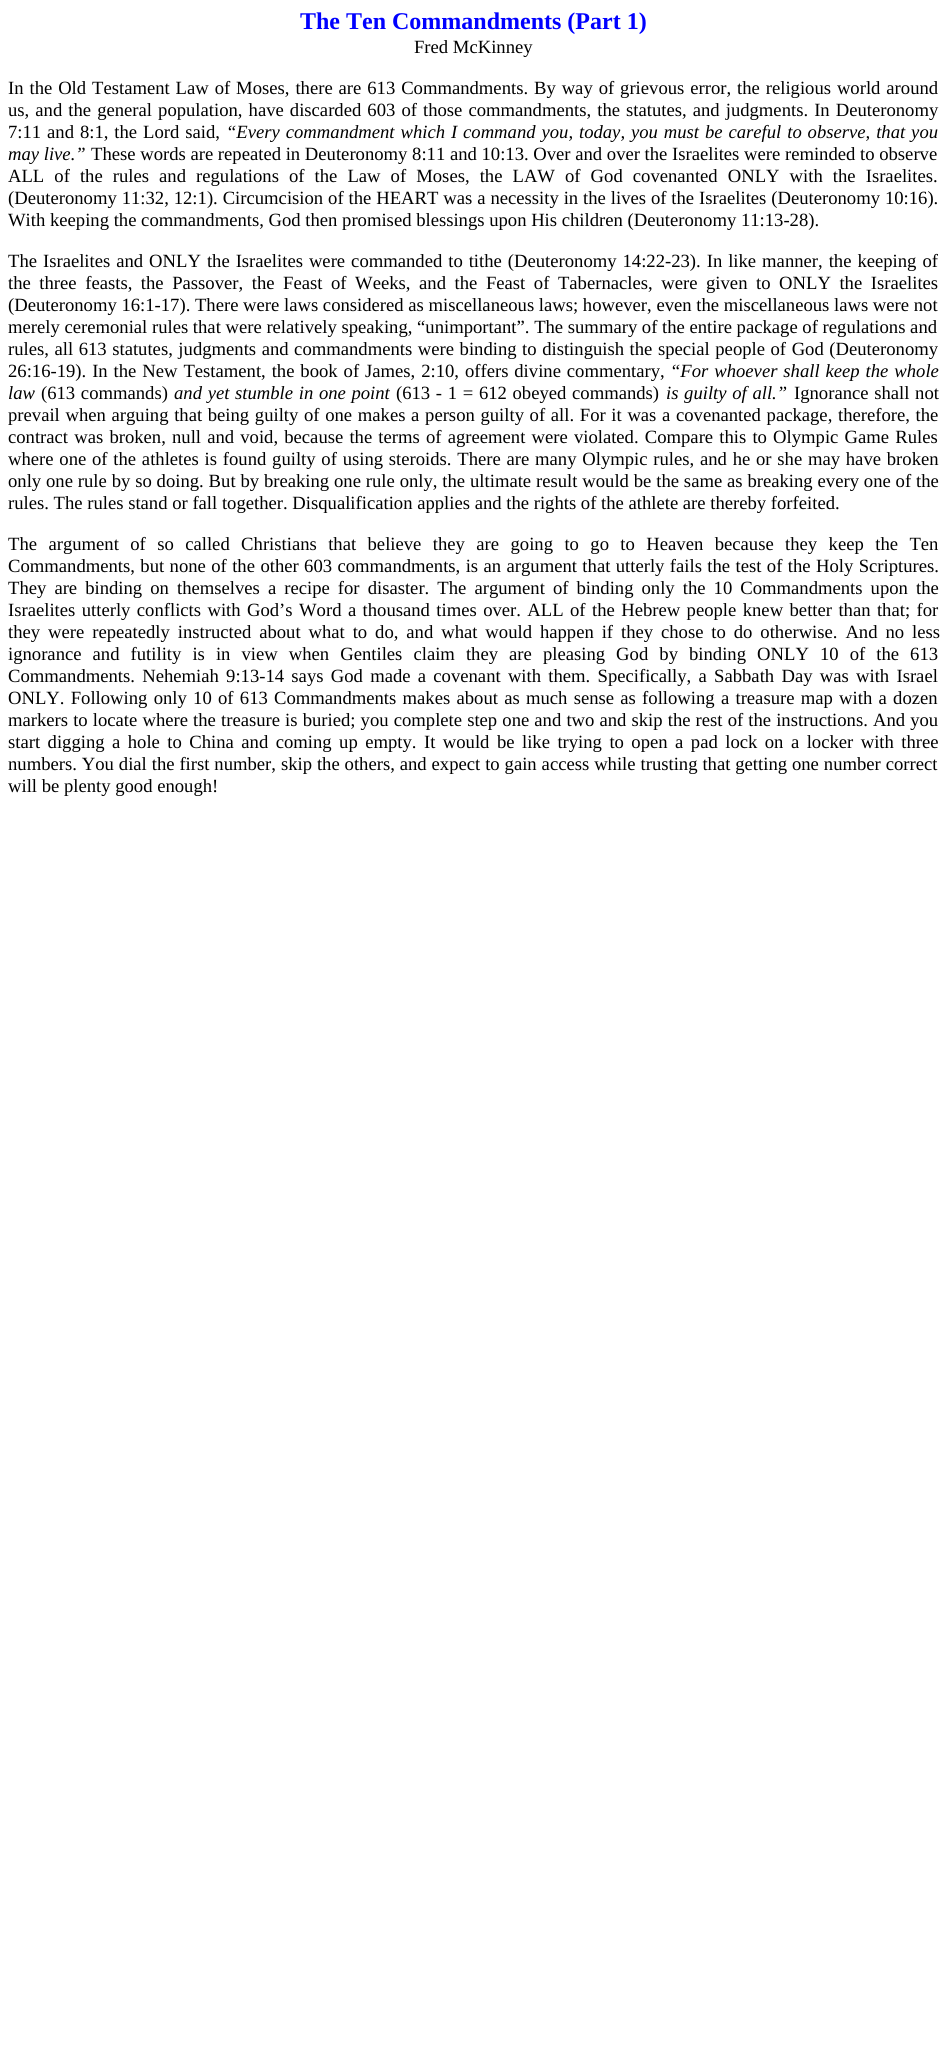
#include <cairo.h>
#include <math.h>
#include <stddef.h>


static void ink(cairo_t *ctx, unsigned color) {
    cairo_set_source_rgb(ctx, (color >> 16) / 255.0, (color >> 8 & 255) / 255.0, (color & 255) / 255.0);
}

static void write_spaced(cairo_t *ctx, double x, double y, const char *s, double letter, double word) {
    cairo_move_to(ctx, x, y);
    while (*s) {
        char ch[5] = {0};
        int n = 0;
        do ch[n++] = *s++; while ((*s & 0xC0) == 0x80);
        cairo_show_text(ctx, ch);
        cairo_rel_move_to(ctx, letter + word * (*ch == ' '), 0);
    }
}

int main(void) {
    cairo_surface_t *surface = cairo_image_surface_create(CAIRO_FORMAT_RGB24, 947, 2059);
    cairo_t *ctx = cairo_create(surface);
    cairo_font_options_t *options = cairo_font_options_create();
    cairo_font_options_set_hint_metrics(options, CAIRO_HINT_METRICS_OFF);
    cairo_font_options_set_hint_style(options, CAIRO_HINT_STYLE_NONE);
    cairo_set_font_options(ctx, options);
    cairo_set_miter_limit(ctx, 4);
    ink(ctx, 0xFFFFFF);
    cairo_paint(ctx);
    cairo_select_font_face(ctx, "Liberation Serif", CAIRO_FONT_SLANT_NORMAL, CAIRO_FONT_WEIGHT_BOLD);
    cairo_set_font_size(ctx, 24);
    ink(ctx, 0x0000FF);
    cairo_move_to(ctx, 300, 29);
    cairo_show_text(ctx, "The Ten Commandments (Part 1)");
    cairo_select_font_face(ctx, "Liberation Serif", CAIRO_FONT_SLANT_NORMAL, CAIRO_FONT_WEIGHT_NORMAL);
    cairo_set_font_size(ctx, 18.65);
    ink(ctx, 0x000000);
    cairo_move_to(ctx, 414, 53);
    cairo_show_text(ctx, "Fred McKinney");
    write_spaced(ctx, 8, 94, "In the Old Testament Law of Moses, there are 613 Commandments. By way of grievous error, the religious world around", 0, 1.25);
    write_spaced(ctx, 8, 116, "us, and the general population, have discarded 603 of those commandments, the statutes, and judgments. In Deuteronomy", 0, 1.4);
    write_spaced(ctx, 8, 138, "7:11 and 8:1, the Lord said,", 0, 1.25);
    cairo_select_font_face(ctx, "Liberation Serif", CAIRO_FONT_SLANT_ITALIC, CAIRO_FONT_WEIGHT_NORMAL);
    write_spaced(ctx, 226, 138, "“Every commandment which I command you, today, you must be careful to observe, that you", 0, 1.25);
    cairo_move_to(ctx, 8, 160);
    cairo_show_text(ctx, "may live.”");
    cairo_select_font_face(ctx, "Liberation Serif", CAIRO_FONT_SLANT_NORMAL, CAIRO_FONT_WEIGHT_NORMAL);
    cairo_move_to(ctx, 91, 160);
    cairo_show_text(ctx, "These words are repeated in Deuteronomy 8:11 and 10:13. Over and over the Israelites were reminded to observe");
    write_spaced(ctx, 8, 182, "ALL of the rules and regulations of the Law of Moses, the LAW of God covenanted ONLY with the Israelites.", 0, 5.4);
    write_spaced(ctx, 8, 204, "(Deuteronomy 11:32, 12:1). Circumcision of the HEART was a necessity in the lives of the Israelites (Deuteronomy 10:16).", 0, 0.25);
    cairo_move_to(ctx, 8, 226);
    cairo_show_text(ctx, "With keeping the commandments, God then promised blessings upon His children (Deuteronomy 11:13-28).");
    write_spaced(ctx, 8, 267, "The Israelites and ONLY the Israelites were commanded to tithe (Deuteronomy 14:22-23). In like manner, the keeping of", 0, 1.3);
    write_spaced(ctx, 8, 289, "the three feasts, the Passover, the Feast of Weeks, and the Feast of Tabernacles, were given to ONLY the Israelites", 0, 3.9);
    cairo_move_to(ctx, 8, 311);
    cairo_show_text(ctx, "(Deuteronomy 16:1-17). There were laws considered as miscellaneous laws; however, even the miscellaneous laws were not");
    cairo_move_to(ctx, 8, 333);
    cairo_show_text(ctx, "merely ceremonial rules that were relatively speaking, “unimportant”. The summary of the entire package of regulations and");
    write_spaced(ctx, 8, 355, "rules, all 613 statutes, judgments and commandments were binding to distinguish the special people of God (Deuteronomy", 0, 0.9);
    write_spaced(ctx, 8, 377, "26:16-19). In the New Testament, the book of James, 2:10, offers divine commentary,", 0, 1.25);
    cairo_select_font_face(ctx, "Liberation Serif", CAIRO_FONT_SLANT_ITALIC, CAIRO_FONT_WEIGHT_NORMAL);
    write_spaced(ctx, 670, 377, "“For whoever shall keep the whole", 0, 1.25);
    cairo_move_to(ctx, 8, 399);
    cairo_show_text(ctx, "law");
    cairo_select_font_face(ctx, "Liberation Serif", CAIRO_FONT_SLANT_NORMAL, CAIRO_FONT_WEIGHT_NORMAL);
    write_spaced(ctx, 41, 399, "(613 commands)", 0, 1);
    cairo_select_font_face(ctx, "Liberation Serif", CAIRO_FONT_SLANT_ITALIC, CAIRO_FONT_WEIGHT_NORMAL);
    write_spaced(ctx, 174, 399, "and yet stumble in one point", 0, 1);
    cairo_select_font_face(ctx, "Liberation Serif", CAIRO_FONT_SLANT_NORMAL, CAIRO_FONT_WEIGHT_NORMAL);
    write_spaced(ctx, 396, 399, "(613 - 1 = 612 obeyed commands)", 0, 1);
    cairo_select_font_face(ctx, "Liberation Serif", CAIRO_FONT_SLANT_ITALIC, CAIRO_FONT_WEIGHT_NORMAL);
    write_spaced(ctx, 666, 399, "is guilty of all.”", 0, 1);
    cairo_select_font_face(ctx, "Liberation Serif", CAIRO_FONT_SLANT_NORMAL, CAIRO_FONT_WEIGHT_NORMAL);
    write_spaced(ctx, 794, 399, "Ignorance shall not", 0, 1);
    write_spaced(ctx, 8, 421, "prevail when arguing that being guilty of one makes a person guilty of all. For it was a covenanted package, therefore, the", 0, 1);
    write_spaced(ctx, 8, 443, "contract was broken, null and void, because the terms of agreement were violated. Compare this to Olympic Game Rules", 0, 1.5);
    write_spaced(ctx, 8, 465, "where one of the athletes is found guilty of using steroids. There are many Olympic rules, and he or she may have broken", 0, 1.1);
    write_spaced(ctx, 8, 487, "only one rule by so doing. But by breaking one rule only, the ultimate result would be the same as breaking every one of the", 0, 0.2);
    cairo_move_to(ctx, 8, 509);
    cairo_show_text(ctx, "rules. The rules stand or fall together. Disqualification applies and the rights of the athlete are thereby forfeited.");
    write_spaced(ctx, 8, 550, "The argument of so called Christians that believe they are going to go to Heaven because they keep the Ten", 0, 6.75);
    write_spaced(ctx, 8, 572, "Commandments, but none of the other 603 commandments, is an argument that utterly fails the test of the Holy Scriptures.", 0, 0.75);
    write_spaced(ctx, 8, 594, "They are binding on themselves a recipe for disaster. The argument of binding only the 10 Commandments upon the", 0, 3.4);
    write_spaced(ctx, 8, 616, "Israelites utterly conflicts with God’s Word a thousand times over. ALL of the Hebrew people knew better than that; for", 0, 1.75);
    write_spaced(ctx, 8, 638, "they were repeatedly instructed about what to do, and what would happen if they chose to do otherwise. And no less", 0, 3.25);
    write_spaced(ctx, 8, 660, "ignorance and futility is in view when Gentiles claim they are pleasing God by binding ONLY 10 of the 613", 0, 6.4);
    write_spaced(ctx, 8, 682, "Commandments. Nehemiah 9:13-14 says God made a covenant with them. Specifically, a Sabbath Day was with Israel", 0, 2.6);
    write_spaced(ctx, 8, 704, "ONLY. Following only 10 of 613 Commandments makes about as much sense as following a treasure map with a dozen", 0, 1.6);
    write_spaced(ctx, 8, 726, "markers to locate where the treasure is buried; you complete step one and two and skip the rest of the instructions. And you", 0, 0.45);
    write_spaced(ctx, 8, 748, "start digging a hole to China and coming up empty. It would be like trying to open a pad lock on a locker with three", 0, 2.8);
    write_spaced(ctx, 8, 770, "numbers. You dial the first number, skip the others, and expect to gain access while trusting that getting one number correct", 0, 0.25);
    cairo_move_to(ctx, 8, 792);
    cairo_show_text(ctx, "will be plenty good enough!");
    cairo_surface_write_to_png(surface, "image.png");
    cairo_font_options_destroy(options);
    cairo_destroy(ctx);
    cairo_surface_destroy(surface);
    return 0;
}
